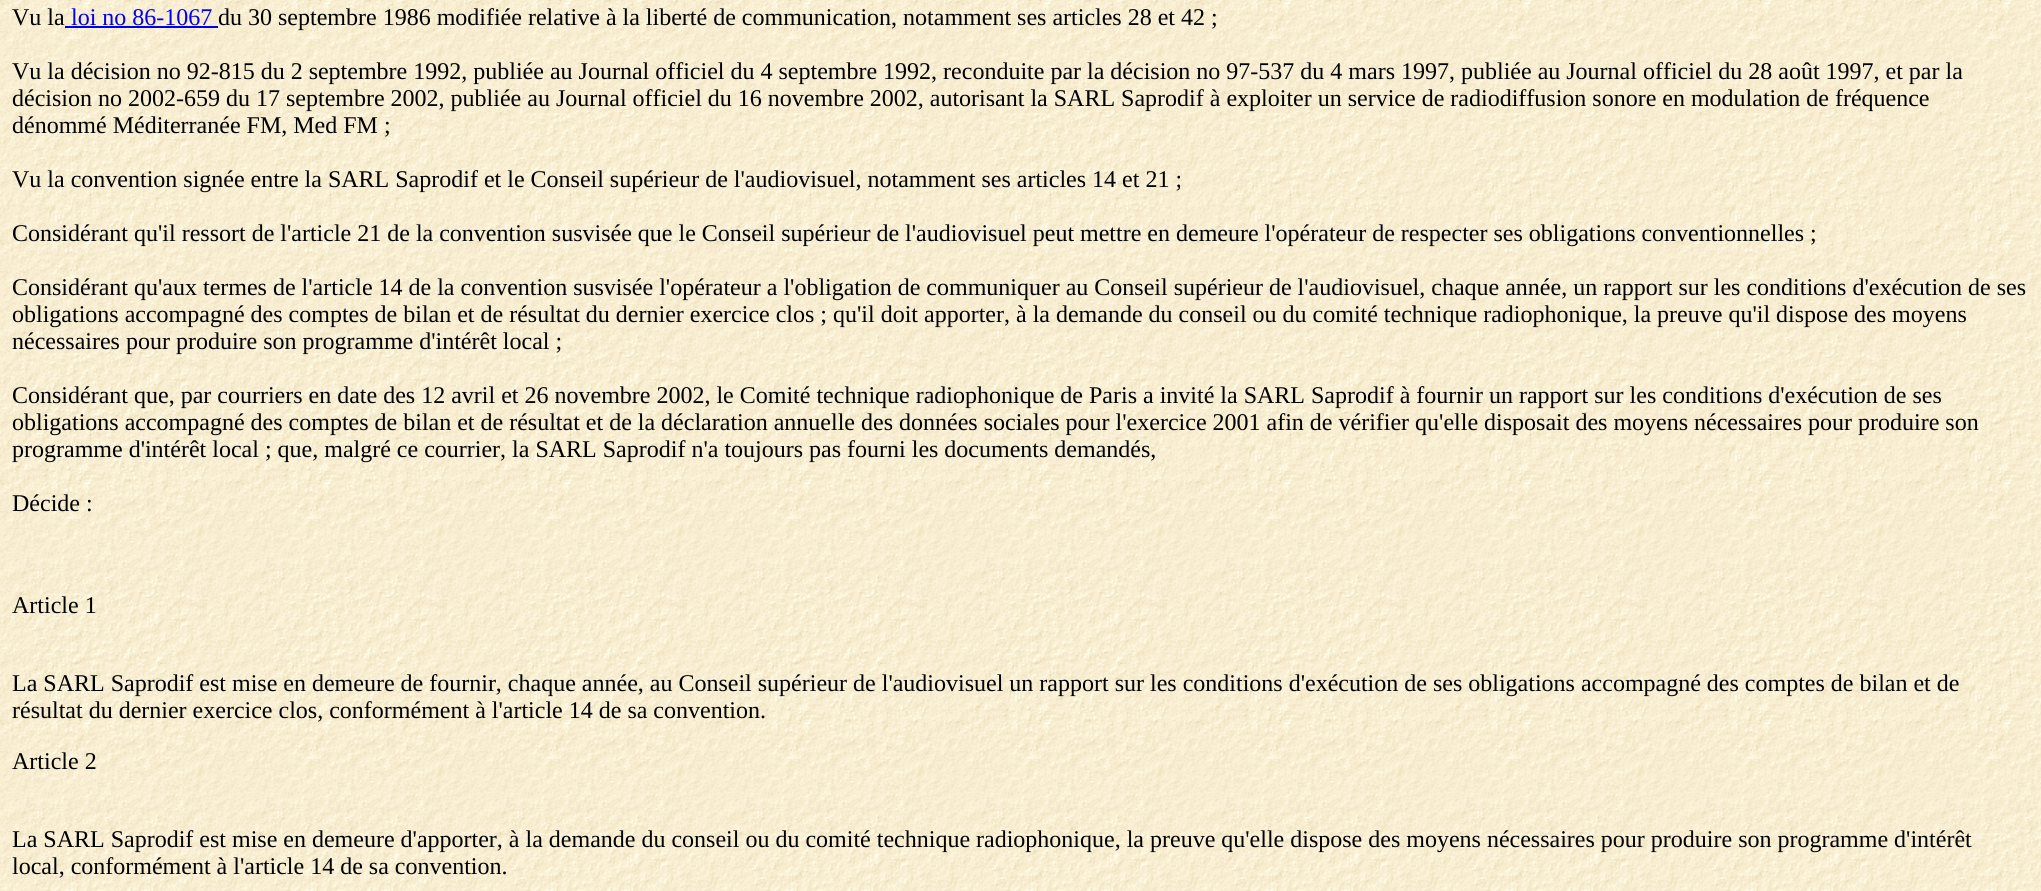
#include <cairo.h>
#include <math.h>
#include <stddef.h>

typedef struct { double x, y; const char *s; } line_t;

static void ink(cairo_t *ctx, unsigned color) {
    cairo_set_source_rgb(ctx, (color >> 16) / 255.0, (color >> 8 & 255) / 255.0, (color & 255) / 255.0);
}

static void paste(cairo_t *ctx, const char *path, double x, double y, double w, double h) {
    cairo_surface_t *image = cairo_image_surface_create_from_png(path);
    cairo_save(ctx);
    cairo_set_source_surface(ctx, image, x, y);
    cairo_rectangle(ctx, x, y, w, h);
    cairo_fill(ctx);
    cairo_restore(ctx);
    cairo_surface_destroy(image);
}

int main(void) {
    cairo_surface_t *surface = cairo_image_surface_create(CAIRO_FORMAT_RGB24, 2041, 891);
    cairo_t *ctx = cairo_create(surface);
    cairo_font_options_t *options = cairo_font_options_create();
    cairo_font_options_set_hint_metrics(options, CAIRO_HINT_METRICS_OFF);
    cairo_font_options_set_hint_style(options, CAIRO_HINT_STYLE_NONE);
    cairo_set_font_options(ctx, options);
    cairo_set_miter_limit(ctx, 4);
    ink(ctx, 0xFFFFFF);
    cairo_paint(ctx);
    paste(ctx, "media/1.png", 0, 0, 2041, 891);
    cairo_select_font_face(ctx, "Liberation Serif", CAIRO_FONT_SLANT_NORMAL, CAIRO_FONT_WEIGHT_NORMAL);
    cairo_set_font_size(ctx, 24);
    ink(ctx, 0x000000);
    cairo_move_to(ctx, 12, 25);
    cairo_show_text(ctx, "Vu la");
    ink(ctx, 0x0000EE);
    cairo_move_to(ctx, 71, 25);
    cairo_show_text(ctx, "loi no 86-1067");
    cairo_rectangle(ctx, 65, 26, 153, 2);
    cairo_fill(ctx);
    ink(ctx, 0x000000);
    {
        static const line_t items[] = {
            {218, 25, "du 30 septembre 1986 modifiée relative à la liberté de communication, notamment ses articles 28 et 42 ;"},
            {12, 79, "Vu la décision no 92-815 du 2 septembre 1992, publiée au Journal officiel du 4 septembre 1992, reconduite par la décision no 97-537 du 4 mars 1997, publiée au Journal officiel du 28 août 1997, et par la"},
            {12, 106, "décision no 2002-659 du 17 septembre 2002, publiée au Journal officiel du 16 novembre 2002, autorisant la SARL Saprodif à exploiter un service de radiodiffusion sonore en modulation de fréquence"},
            {12, 133, "dénommé Méditerranée FM, Med FM ;"},
            {12, 187, "Vu la convention signée entre la SARL Saprodif et le Conseil supérieur de l'audiovisuel, notamment ses articles 14 et 21 ;"},
            {12, 241, "Considérant qu'il ressort de l'article 21 de la convention susvisée que le Conseil supérieur de l'audiovisuel peut mettre en demeure l'opérateur de respecter ses obligations conventionnelles ;"},
            {12, 295, "Considérant qu'aux termes de l'article 14 de la convention susvisée l'opérateur a l'obligation de communiquer au Conseil supérieur de l'audiovisuel, chaque année, un rapport sur les conditions d'exécution de ses"},
            {12, 322, "obligations accompagné des comptes de bilan et de résultat du dernier exercice clos ; qu'il doit apporter, à la demande du conseil ou du comité technique radiophonique, la preuve qu'il dispose des moyens"},
            {12, 349, "nécessaires pour produire son programme d'intérêt local ;"},
            {12, 403, "Considérant que, par courriers en date des 12 avril et 26 novembre 2002, le Comité technique radiophonique de Paris a invité la SARL Saprodif à fournir un rapport sur les conditions d'exécution de ses"},
            {12, 430, "obligations accompagné des comptes de bilan et de résultat et de la déclaration annuelle des données sociales pour l'exercice 2001 afin de vérifier qu'elle disposait des moyens nécessaires pour produire son"},
            {12, 457, "programme d'intérêt local ; que, malgré ce courrier, la SARL Saprodif n'a toujours pas fourni les documents demandés,"},
            {12, 511, "Décide :"},
            {12, 613, "Article 1"},
            {12, 691, "La SARL Saprodif est mise en demeure de fournir, chaque année, au Conseil supérieur de l'audiovisuel un rapport sur les conditions d'exécution de ses obligations accompagné des comptes de bilan et de"},
            {12, 718, "résultat du dernier exercice clos, conformément à l'article 14 de sa convention."},
            {12, 769, "Article 2"},
            {12, 847, "La SARL Saprodif est mise en demeure d'apporter, à la demande du conseil ou du comité technique radiophonique, la preuve qu'elle dispose des moyens nécessaires pour produire son programme d'intérêt"},
            {12, 874, "local, conformément à l'article 14 de sa convention."},
        };
        for (size_t i = 0; i < sizeof items / sizeof *items; i++) {
            cairo_move_to(ctx, items[i].x, items[i].y);
            cairo_show_text(ctx, items[i].s);
        }
    }
    cairo_surface_write_to_png(surface, "image.png");
    cairo_font_options_destroy(options);
    cairo_destroy(ctx);
    cairo_surface_destroy(surface);
    return 0;
}
